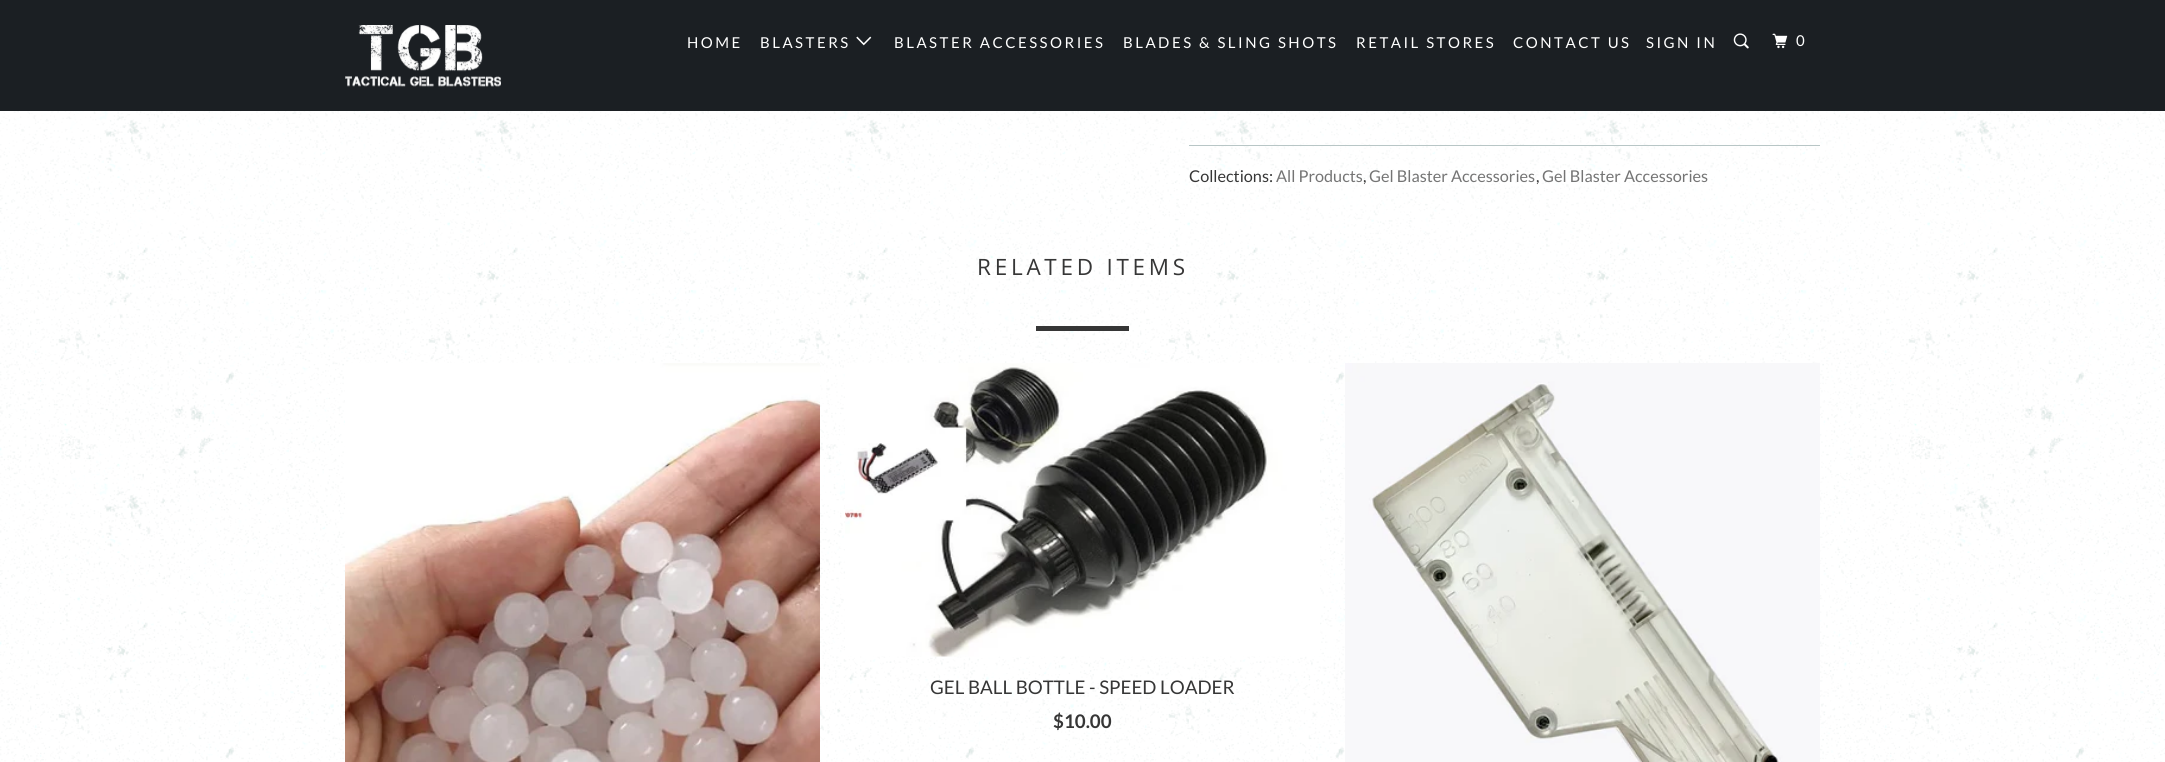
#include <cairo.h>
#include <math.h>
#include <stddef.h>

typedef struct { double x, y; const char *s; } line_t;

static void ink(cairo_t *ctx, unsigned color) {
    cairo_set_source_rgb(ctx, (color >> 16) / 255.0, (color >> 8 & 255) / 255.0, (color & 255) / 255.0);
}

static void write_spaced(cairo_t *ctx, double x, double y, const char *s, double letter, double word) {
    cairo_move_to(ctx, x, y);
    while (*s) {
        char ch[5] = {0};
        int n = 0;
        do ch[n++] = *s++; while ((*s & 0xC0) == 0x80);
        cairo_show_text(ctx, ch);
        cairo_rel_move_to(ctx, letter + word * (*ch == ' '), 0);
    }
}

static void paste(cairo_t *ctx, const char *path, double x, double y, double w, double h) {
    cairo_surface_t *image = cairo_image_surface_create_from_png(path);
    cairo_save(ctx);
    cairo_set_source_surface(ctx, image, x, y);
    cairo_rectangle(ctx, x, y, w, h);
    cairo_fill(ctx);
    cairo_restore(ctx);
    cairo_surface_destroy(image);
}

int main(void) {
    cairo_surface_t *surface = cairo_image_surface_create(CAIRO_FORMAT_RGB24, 2165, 762);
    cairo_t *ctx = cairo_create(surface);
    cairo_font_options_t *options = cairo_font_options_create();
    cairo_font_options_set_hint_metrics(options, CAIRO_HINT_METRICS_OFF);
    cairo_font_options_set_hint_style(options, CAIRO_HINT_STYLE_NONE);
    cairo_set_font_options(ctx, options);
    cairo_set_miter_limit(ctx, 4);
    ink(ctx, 0xFFFFFF);
    cairo_paint(ctx);
    paste(ctx, "media/1.png", 0, 111, 2165, 651);
    ink(ctx, 0x1B1F23);
    cairo_rectangle(ctx, 0, 0, 2165, 111);
    cairo_fill(ctx);
    paste(ctx, "media/2.png", 345, 25, 156, 62);
    cairo_select_font_face(ctx, "Lato", CAIRO_FONT_SLANT_NORMAL, CAIRO_FONT_WEIGHT_NORMAL);
    cairo_set_font_size(ctx, 15);
    ink(ctx, 0xFFFFFF);
    write_spaced(ctx, 687, 48, "HOME", 2.5, 0);
    write_spaced(ctx, 760, 48, "BLASTERS", 2.5, 0);
    paste(ctx, "media/3.png", 856, 36, 16, 10);
    {
        static const line_t items[] = {
            {894, 48, "BLASTER ACCESSORIES"},
            {1123, 48, "BLADES & SLING SHOTS"},
            {1356, 48, "RETAIL STORES"},
            {1513, 48, "CONTACT US"},
            {1646, 48, "SIGN IN"},
        };
        for (size_t i = 0; i < sizeof items / sizeof *items; i++) {
            write_spaced(ctx, items[i].x, items[i].y, items[i].s, 2.5, 0);
        }
    }
    paste(ctx, "media/4.png", 1733, 33, 16, 16);
    paste(ctx, "media/5.png", 1772, 33, 16, 16);
    write_spaced(ctx, 1796, 46, "0", 2.5, 0);
    ink(ctx, 0xB8C6C6);
    cairo_rectangle(ctx, 1189, 145, 631, 1);
    cairo_fill(ctx);
    cairo_set_font_size(ctx, 16.25);
    ink(ctx, 0x363636);
    cairo_move_to(ctx, 1189, 182);
    cairo_show_text(ctx, "Collections:");
    ink(ctx, 0x747474);
    cairo_move_to(ctx, 1276, 182);
    cairo_show_text(ctx, "All Products");
    ink(ctx, 0x363636);
    cairo_move_to(ctx, 1363, 182);
    cairo_show_text(ctx, ",");
    ink(ctx, 0x747474);
    cairo_move_to(ctx, 1369, 182);
    cairo_show_text(ctx, "Gel Blaster Accessories");
    ink(ctx, 0x363636);
    cairo_move_to(ctx, 1536, 182);
    cairo_show_text(ctx, ",");
    ink(ctx, 0x747474);
    cairo_move_to(ctx, 1542, 182);
    cairo_show_text(ctx, "Gel Blaster Accessories");
    cairo_select_font_face(ctx, "Open Sans", CAIRO_FONT_SLANT_NORMAL, CAIRO_FONT_WEIGHT_NORMAL);
    cairo_set_font_size(ctx, 22.5);
    ink(ctx, 0x363636);
    write_spaced(ctx, 977, 275, "RELATED ITEMS", 3.75, 0);
    cairo_rectangle(ctx, 1036, 326, 93, 5);
    cairo_fill(ctx);
    paste(ctx, "media/6.png", 345, 363, 475, 399);
    paste(ctx, "media/7.png", 845, 363, 475, 294);
    cairo_select_font_face(ctx, "Lato", CAIRO_FONT_SLANT_NORMAL, CAIRO_FONT_WEIGHT_NORMAL);
    cairo_set_font_size(ctx, 18.75);
    cairo_move_to(ctx, 930, 694);
    cairo_show_text(ctx, "GEL BALL BOTTLE - SPEED LOADER");
    cairo_select_font_face(ctx, "Lato", CAIRO_FONT_SLANT_NORMAL, CAIRO_FONT_WEIGHT_BOLD);
    cairo_move_to(ctx, 1053, 728);
    cairo_show_text(ctx, "$10.00");
    paste(ctx, "media/8.png", 1345, 363, 475, 399);
    cairo_surface_write_to_png(surface, "image.png");
    cairo_font_options_destroy(options);
    cairo_destroy(ctx);
    cairo_surface_destroy(surface);
    return 0;
}
